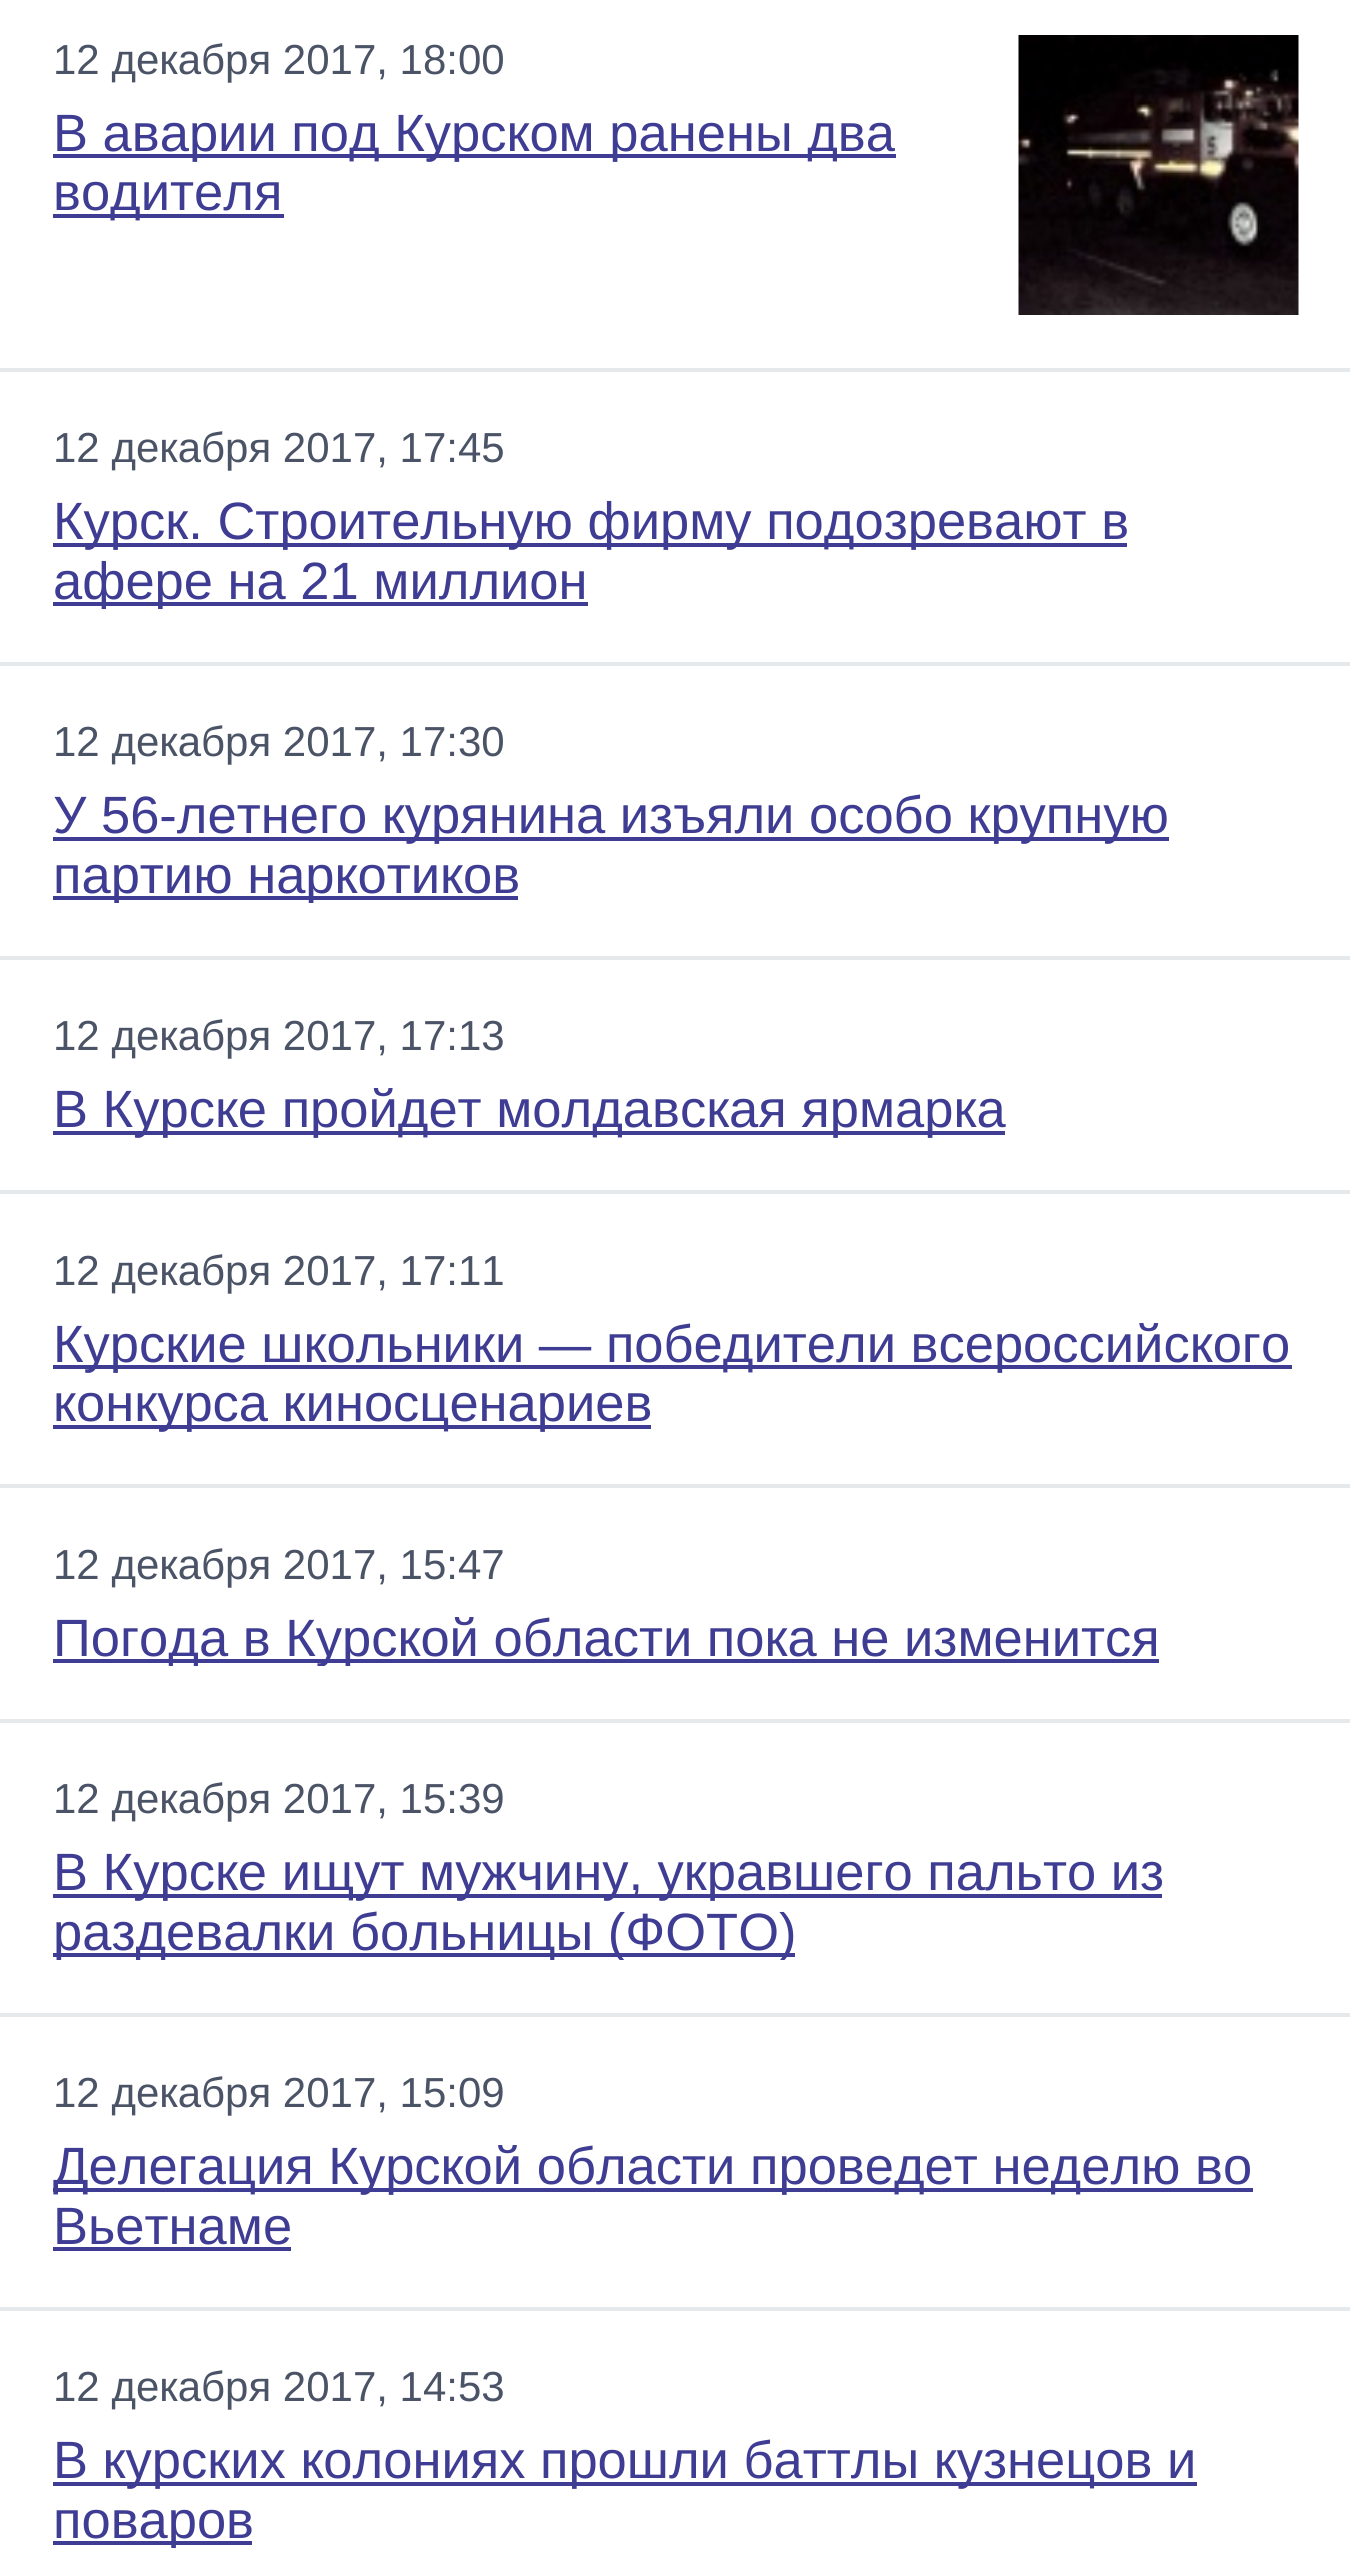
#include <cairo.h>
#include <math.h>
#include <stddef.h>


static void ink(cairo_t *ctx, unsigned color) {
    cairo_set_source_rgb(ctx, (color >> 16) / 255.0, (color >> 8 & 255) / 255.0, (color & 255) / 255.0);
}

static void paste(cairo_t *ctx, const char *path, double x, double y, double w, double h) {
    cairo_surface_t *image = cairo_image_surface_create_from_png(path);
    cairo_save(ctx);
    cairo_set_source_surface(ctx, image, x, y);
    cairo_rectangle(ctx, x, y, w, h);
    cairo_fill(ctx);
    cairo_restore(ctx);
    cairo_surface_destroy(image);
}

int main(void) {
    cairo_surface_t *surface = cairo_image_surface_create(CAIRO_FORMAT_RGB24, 1350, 2552);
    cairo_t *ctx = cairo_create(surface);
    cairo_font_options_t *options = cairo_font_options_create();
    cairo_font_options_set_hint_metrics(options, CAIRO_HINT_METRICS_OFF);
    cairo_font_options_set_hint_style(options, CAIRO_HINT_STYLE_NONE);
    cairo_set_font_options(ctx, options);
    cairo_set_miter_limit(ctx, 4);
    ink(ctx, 0xFFFFFF);
    cairo_paint(ctx);
    ink(ctx, 0xE6E9EB);
    cairo_rectangle(ctx, 0, 368, 1350, 4);
    cairo_fill(ctx);
    cairo_select_font_face(ctx, "Liberation Sans", CAIRO_FONT_SLANT_NORMAL, CAIRO_FONT_WEIGHT_NORMAL);
    cairo_set_font_size(ctx, 42);
    ink(ctx, 0x4B5366);
    cairo_move_to(ctx, 53, 74);
    cairo_show_text(ctx, "12 декабря 2017, 18:00");
    paste(ctx, "media/1.png", 1018, 35, 281, 280);
    ink(ctx, 0x3F3D93);
    cairo_rectangle(ctx, 53, 154, 843, 4);
    cairo_fill(ctx);
    cairo_set_font_size(ctx, 52.5);
    cairo_move_to(ctx, 53, 151);
    cairo_show_text(ctx, "В аварии под Курском ранены два");
    cairo_rectangle(ctx, 53, 214, 231, 4);
    cairo_fill(ctx);
    cairo_move_to(ctx, 53, 210);
    cairo_show_text(ctx, "водителя");
    ink(ctx, 0xE6E9EB);
    cairo_rectangle(ctx, 0, 662, 1350, 4);
    cairo_fill(ctx);
    cairo_set_font_size(ctx, 42);
    ink(ctx, 0x4B5366);
    cairo_move_to(ctx, 53, 462);
    cairo_show_text(ctx, "12 декабря 2017, 17:45");
    ink(ctx, 0x3F3D93);
    cairo_rectangle(ctx, 53, 543, 1074, 4);
    cairo_fill(ctx);
    cairo_set_font_size(ctx, 52.5);
    cairo_move_to(ctx, 53, 539);
    cairo_show_text(ctx, "Курск. Строительную фирму подозревают в");
    cairo_rectangle(ctx, 53, 602, 535, 4);
    cairo_fill(ctx);
    cairo_save(ctx);
    cairo_rectangle(ctx, 53, 490, 1246, 119);
    cairo_clip(ctx);
    cairo_move_to(ctx, 53, 599);
    cairo_show_text(ctx, "афере на 21 миллион");
    cairo_restore(ctx);
    ink(ctx, 0xE6E9EB);
    cairo_rectangle(ctx, 0, 956, 1350, 4);
    cairo_fill(ctx);
    cairo_set_font_size(ctx, 42);
    ink(ctx, 0x4B5366);
    cairo_move_to(ctx, 53, 756);
    cairo_show_text(ctx, "12 декабря 2017, 17:30");
    ink(ctx, 0x3F3D93);
    cairo_rectangle(ctx, 53, 837, 1116, 4);
    cairo_fill(ctx);
    cairo_set_font_size(ctx, 52.5);
    cairo_move_to(ctx, 53, 833);
    cairo_show_text(ctx, "У 56-летнего курянина изъяли особо крупную");
    cairo_rectangle(ctx, 53, 896, 465, 4);
    cairo_fill(ctx);
    cairo_save(ctx);
    cairo_rectangle(ctx, 53, 784, 1246, 119);
    cairo_clip(ctx);
    cairo_move_to(ctx, 53, 893);
    cairo_show_text(ctx, "партию наркотиков");
    cairo_restore(ctx);
    ink(ctx, 0xE6E9EB);
    cairo_rectangle(ctx, 0, 1190, 1350, 4);
    cairo_fill(ctx);
    cairo_set_font_size(ctx, 42);
    ink(ctx, 0x4B5366);
    cairo_move_to(ctx, 53, 1050);
    cairo_show_text(ctx, "12 декабря 2017, 17:13");
    ink(ctx, 0x3F3D93);
    cairo_rectangle(ctx, 53, 1131, 952, 4);
    cairo_fill(ctx);
    cairo_set_font_size(ctx, 52.5);
    cairo_move_to(ctx, 53, 1127);
    cairo_show_text(ctx, "В Курске пройдет молдавская ярмарка");
    ink(ctx, 0xE6E9EB);
    cairo_rectangle(ctx, 0, 1484, 1350, 4);
    cairo_fill(ctx);
    cairo_set_font_size(ctx, 42);
    ink(ctx, 0x4B5366);
    cairo_move_to(ctx, 53, 1285);
    cairo_show_text(ctx, "12 декабря 2017, 17:11");
    ink(ctx, 0x3F3D93);
    cairo_rectangle(ctx, 53, 1365, 1239, 4);
    cairo_fill(ctx);
    cairo_set_font_size(ctx, 52.5);
    cairo_move_to(ctx, 53, 1362);
    cairo_show_text(ctx, "Курские школьники — победители всероссийского");
    cairo_rectangle(ctx, 53, 1425, 598, 4);
    cairo_fill(ctx);
    cairo_move_to(ctx, 53, 1421);
    cairo_show_text(ctx, "конкурса киносценариев");
    ink(ctx, 0xE6E9EB);
    cairo_rectangle(ctx, 0, 1719, 1350, 4);
    cairo_fill(ctx);
    cairo_set_font_size(ctx, 42);
    ink(ctx, 0x4B5366);
    cairo_move_to(ctx, 53, 1579);
    cairo_show_text(ctx, "12 декабря 2017, 15:47");
    ink(ctx, 0x3F3D93);
    cairo_rectangle(ctx, 53, 1659, 1106, 4);
    cairo_fill(ctx);
    cairo_save(ctx);
    cairo_rectangle(ctx, 53, 1607, 1246, 59);
    cairo_clip(ctx);
    cairo_set_font_size(ctx, 52.5);
    cairo_move_to(ctx, 53, 1656);
    cairo_show_text(ctx, "Погода в Курской области пока не изменится");
    cairo_restore(ctx);
    ink(ctx, 0xE6E9EB);
    cairo_rectangle(ctx, 0, 2013, 1350, 4);
    cairo_fill(ctx);
    ink(ctx, 0x4B5366);
    cairo_move_to(ctx, 53, 1813);
    cairo_show_text(ctx, "12 декабря 2017, 15:39");
    ink(ctx, 0x3F3D93);
    cairo_rectangle(ctx, 53, 1894, 1109, 4);
    cairo_fill(ctx);
    cairo_set_font_size(ctx, 52.5);
    cairo_move_to(ctx, 53, 1890);
    cairo_show_text(ctx, "В Курске ищут мужчину, укравшего пальто из");
    cairo_rectangle(ctx, 53, 1953, 742, 4);
    cairo_fill(ctx);
    cairo_save(ctx);
    cairo_rectangle(ctx, 53, 1841, 1246, 119);
    cairo_clip(ctx);
    cairo_move_to(ctx, 53, 1950);
    cairo_show_text(ctx, "раздевалки больницы (ФОТО)");
    cairo_restore(ctx);
    ink(ctx, 0xE6E9EB);
    cairo_rectangle(ctx, 0, 2307, 1350, 4);
    cairo_fill(ctx);
    cairo_set_font_size(ctx, 42);
    ink(ctx, 0x4B5366);
    cairo_move_to(ctx, 53, 2107);
    cairo_show_text(ctx, "12 декабря 2017, 15:09");
    ink(ctx, 0x3F3D93);
    cairo_rectangle(ctx, 53, 2188, 1200, 4);
    cairo_fill(ctx);
    cairo_save(ctx);
    cairo_rectangle(ctx, 53, 2135, 1246, 119);
    cairo_clip(ctx);
    cairo_set_font_size(ctx, 52.5);
    cairo_move_to(ctx, 53, 2184);
    cairo_show_text(ctx, "Делегация Курской области проведет неделю во");
    cairo_restore(ctx);
    cairo_set_font_size(ctx, 52.5);
    cairo_move_to(ctx, 53, 2244);
    cairo_show_text(ctx, "Вьетнаме");
    cairo_rectangle(ctx, 53, 2247, 238, 4);
    cairo_fill(ctx);
    cairo_set_font_size(ctx, 42);
    ink(ctx, 0x4B5366);
    cairo_move_to(ctx, 53, 2401);
    cairo_show_text(ctx, "12 декабря 2017, 14:53");
    ink(ctx, 0x3F3D93);
    cairo_rectangle(ctx, 53, 2482, 1144, 4);
    cairo_fill(ctx);
    cairo_set_font_size(ctx, 52.5);
    cairo_move_to(ctx, 53, 2478);
    cairo_show_text(ctx, "В курских колониях прошли баттлы кузнецов и");
    cairo_rectangle(ctx, 53, 2541, 199, 4);
    cairo_fill(ctx);
    cairo_save(ctx);
    cairo_rectangle(ctx, 53, 2429, 1246, 119);
    cairo_clip(ctx);
    cairo_move_to(ctx, 53, 2538);
    cairo_show_text(ctx, "поваров");
    cairo_restore(ctx);
    cairo_surface_write_to_png(surface, "image.png");
    cairo_font_options_destroy(options);
    cairo_destroy(ctx);
    cairo_surface_destroy(surface);
    return 0;
}
